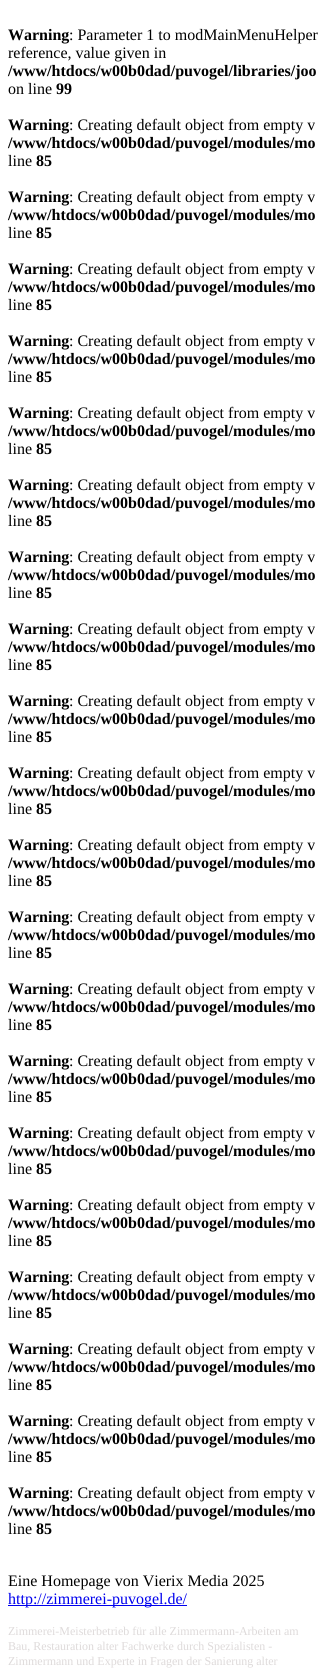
#include <cairo.h>
#include <math.h>
#include <stddef.h>

typedef struct { double x, y; const char *s; } line_t;

static void ink(cairo_t *ctx, unsigned color) {
    cairo_set_source_rgb(ctx, (color >> 16) / 255.0, (color >> 8 & 255) / 255.0, (color & 255) / 255.0);
}

int main(void) {
    cairo_surface_t *surface = cairo_image_surface_create(CAIRO_FORMAT_RGB24, 319, 1673);
    cairo_t *ctx = cairo_create(surface);
    cairo_font_options_t *options = cairo_font_options_create();
    cairo_font_options_set_hint_metrics(options, CAIRO_HINT_METRICS_OFF);
    cairo_font_options_set_hint_style(options, CAIRO_HINT_STYLE_NONE);
    cairo_set_font_options(ctx, options);
    cairo_set_miter_limit(ctx, 4);
    ink(ctx, 0xFFFFFF);
    cairo_paint(ctx);
    cairo_select_font_face(ctx, "Liberation Serif", CAIRO_FONT_SLANT_NORMAL, CAIRO_FONT_WEIGHT_BOLD);
    cairo_set_font_size(ctx, 16);
    ink(ctx, 0x000000);
    cairo_move_to(ctx, 8, 40);
    cairo_show_text(ctx, "Warning");
    cairo_select_font_face(ctx, "Liberation Serif", CAIRO_FONT_SLANT_NORMAL, CAIRO_FONT_WEIGHT_NORMAL);
    cairo_move_to(ctx, 69, 40);
    cairo_show_text(ctx, ": Parameter 1 to modMainMenuHelper");
    cairo_move_to(ctx, 8, 58);
    cairo_show_text(ctx, "reference, value given in");
    cairo_select_font_face(ctx, "Liberation Serif", CAIRO_FONT_SLANT_NORMAL, CAIRO_FONT_WEIGHT_BOLD);
    cairo_move_to(ctx, 8, 76);
    cairo_show_text(ctx, "/www/htdocs/w00b0dad/puvogel/libraries/joo");
    cairo_select_font_face(ctx, "Liberation Serif", CAIRO_FONT_SLANT_NORMAL, CAIRO_FONT_WEIGHT_NORMAL);
    cairo_move_to(ctx, 8, 94);
    cairo_show_text(ctx, "on line");
    cairo_select_font_face(ctx, "Liberation Serif", CAIRO_FONT_SLANT_NORMAL, CAIRO_FONT_WEIGHT_BOLD);
    cairo_move_to(ctx, 56, 94);
    cairo_show_text(ctx, "99");
    cairo_move_to(ctx, 8, 130);
    cairo_show_text(ctx, "Warning");
    cairo_select_font_face(ctx, "Liberation Serif", CAIRO_FONT_SLANT_NORMAL, CAIRO_FONT_WEIGHT_NORMAL);
    cairo_move_to(ctx, 69, 130);
    cairo_show_text(ctx, ": Creating default object from empty v");
    cairo_select_font_face(ctx, "Liberation Serif", CAIRO_FONT_SLANT_NORMAL, CAIRO_FONT_WEIGHT_BOLD);
    cairo_move_to(ctx, 8, 148);
    cairo_show_text(ctx, "/www/htdocs/w00b0dad/puvogel/modules/mo");
    cairo_select_font_face(ctx, "Liberation Serif", CAIRO_FONT_SLANT_NORMAL, CAIRO_FONT_WEIGHT_NORMAL);
    cairo_move_to(ctx, 8, 166);
    cairo_show_text(ctx, "line");
    cairo_select_font_face(ctx, "Liberation Serif", CAIRO_FONT_SLANT_NORMAL, CAIRO_FONT_WEIGHT_BOLD);
    cairo_move_to(ctx, 36, 166);
    cairo_show_text(ctx, "85");
    cairo_move_to(ctx, 8, 202);
    cairo_show_text(ctx, "Warning");
    cairo_select_font_face(ctx, "Liberation Serif", CAIRO_FONT_SLANT_NORMAL, CAIRO_FONT_WEIGHT_NORMAL);
    cairo_move_to(ctx, 69, 202);
    cairo_show_text(ctx, ": Creating default object from empty v");
    cairo_select_font_face(ctx, "Liberation Serif", CAIRO_FONT_SLANT_NORMAL, CAIRO_FONT_WEIGHT_BOLD);
    cairo_move_to(ctx, 8, 220);
    cairo_show_text(ctx, "/www/htdocs/w00b0dad/puvogel/modules/mo");
    cairo_select_font_face(ctx, "Liberation Serif", CAIRO_FONT_SLANT_NORMAL, CAIRO_FONT_WEIGHT_NORMAL);
    cairo_move_to(ctx, 8, 238);
    cairo_show_text(ctx, "line");
    cairo_select_font_face(ctx, "Liberation Serif", CAIRO_FONT_SLANT_NORMAL, CAIRO_FONT_WEIGHT_BOLD);
    cairo_move_to(ctx, 36, 238);
    cairo_show_text(ctx, "85");
    cairo_move_to(ctx, 8, 274);
    cairo_show_text(ctx, "Warning");
    cairo_select_font_face(ctx, "Liberation Serif", CAIRO_FONT_SLANT_NORMAL, CAIRO_FONT_WEIGHT_NORMAL);
    cairo_move_to(ctx, 69, 274);
    cairo_show_text(ctx, ": Creating default object from empty v");
    cairo_select_font_face(ctx, "Liberation Serif", CAIRO_FONT_SLANT_NORMAL, CAIRO_FONT_WEIGHT_BOLD);
    cairo_move_to(ctx, 8, 292);
    cairo_show_text(ctx, "/www/htdocs/w00b0dad/puvogel/modules/mo");
    cairo_select_font_face(ctx, "Liberation Serif", CAIRO_FONT_SLANT_NORMAL, CAIRO_FONT_WEIGHT_NORMAL);
    cairo_move_to(ctx, 8, 310);
    cairo_show_text(ctx, "line");
    cairo_select_font_face(ctx, "Liberation Serif", CAIRO_FONT_SLANT_NORMAL, CAIRO_FONT_WEIGHT_BOLD);
    cairo_move_to(ctx, 36, 310);
    cairo_show_text(ctx, "85");
    cairo_move_to(ctx, 8, 346);
    cairo_show_text(ctx, "Warning");
    cairo_select_font_face(ctx, "Liberation Serif", CAIRO_FONT_SLANT_NORMAL, CAIRO_FONT_WEIGHT_NORMAL);
    cairo_move_to(ctx, 69, 346);
    cairo_show_text(ctx, ": Creating default object from empty v");
    cairo_select_font_face(ctx, "Liberation Serif", CAIRO_FONT_SLANT_NORMAL, CAIRO_FONT_WEIGHT_BOLD);
    cairo_move_to(ctx, 8, 364);
    cairo_show_text(ctx, "/www/htdocs/w00b0dad/puvogel/modules/mo");
    cairo_select_font_face(ctx, "Liberation Serif", CAIRO_FONT_SLANT_NORMAL, CAIRO_FONT_WEIGHT_NORMAL);
    cairo_move_to(ctx, 8, 382);
    cairo_show_text(ctx, "line");
    cairo_select_font_face(ctx, "Liberation Serif", CAIRO_FONT_SLANT_NORMAL, CAIRO_FONT_WEIGHT_BOLD);
    cairo_move_to(ctx, 36, 382);
    cairo_show_text(ctx, "85");
    cairo_move_to(ctx, 8, 418);
    cairo_show_text(ctx, "Warning");
    cairo_select_font_face(ctx, "Liberation Serif", CAIRO_FONT_SLANT_NORMAL, CAIRO_FONT_WEIGHT_NORMAL);
    cairo_move_to(ctx, 69, 418);
    cairo_show_text(ctx, ": Creating default object from empty v");
    cairo_select_font_face(ctx, "Liberation Serif", CAIRO_FONT_SLANT_NORMAL, CAIRO_FONT_WEIGHT_BOLD);
    cairo_move_to(ctx, 8, 436);
    cairo_show_text(ctx, "/www/htdocs/w00b0dad/puvogel/modules/mo");
    cairo_select_font_face(ctx, "Liberation Serif", CAIRO_FONT_SLANT_NORMAL, CAIRO_FONT_WEIGHT_NORMAL);
    cairo_move_to(ctx, 8, 454);
    cairo_show_text(ctx, "line");
    cairo_select_font_face(ctx, "Liberation Serif", CAIRO_FONT_SLANT_NORMAL, CAIRO_FONT_WEIGHT_BOLD);
    cairo_move_to(ctx, 36, 454);
    cairo_show_text(ctx, "85");
    cairo_move_to(ctx, 8, 490);
    cairo_show_text(ctx, "Warning");
    cairo_select_font_face(ctx, "Liberation Serif", CAIRO_FONT_SLANT_NORMAL, CAIRO_FONT_WEIGHT_NORMAL);
    cairo_move_to(ctx, 69, 490);
    cairo_show_text(ctx, ": Creating default object from empty v");
    cairo_select_font_face(ctx, "Liberation Serif", CAIRO_FONT_SLANT_NORMAL, CAIRO_FONT_WEIGHT_BOLD);
    cairo_move_to(ctx, 8, 508);
    cairo_show_text(ctx, "/www/htdocs/w00b0dad/puvogel/modules/mo");
    cairo_select_font_face(ctx, "Liberation Serif", CAIRO_FONT_SLANT_NORMAL, CAIRO_FONT_WEIGHT_NORMAL);
    cairo_move_to(ctx, 8, 526);
    cairo_show_text(ctx, "line");
    cairo_select_font_face(ctx, "Liberation Serif", CAIRO_FONT_SLANT_NORMAL, CAIRO_FONT_WEIGHT_BOLD);
    cairo_move_to(ctx, 36, 526);
    cairo_show_text(ctx, "85");
    cairo_move_to(ctx, 8, 562);
    cairo_show_text(ctx, "Warning");
    cairo_select_font_face(ctx, "Liberation Serif", CAIRO_FONT_SLANT_NORMAL, CAIRO_FONT_WEIGHT_NORMAL);
    cairo_move_to(ctx, 69, 562);
    cairo_show_text(ctx, ": Creating default object from empty v");
    cairo_select_font_face(ctx, "Liberation Serif", CAIRO_FONT_SLANT_NORMAL, CAIRO_FONT_WEIGHT_BOLD);
    cairo_move_to(ctx, 8, 580);
    cairo_show_text(ctx, "/www/htdocs/w00b0dad/puvogel/modules/mo");
    cairo_select_font_face(ctx, "Liberation Serif", CAIRO_FONT_SLANT_NORMAL, CAIRO_FONT_WEIGHT_NORMAL);
    cairo_move_to(ctx, 8, 598);
    cairo_show_text(ctx, "line");
    cairo_select_font_face(ctx, "Liberation Serif", CAIRO_FONT_SLANT_NORMAL, CAIRO_FONT_WEIGHT_BOLD);
    cairo_move_to(ctx, 36, 598);
    cairo_show_text(ctx, "85");
    cairo_move_to(ctx, 8, 634);
    cairo_show_text(ctx, "Warning");
    cairo_select_font_face(ctx, "Liberation Serif", CAIRO_FONT_SLANT_NORMAL, CAIRO_FONT_WEIGHT_NORMAL);
    cairo_move_to(ctx, 69, 634);
    cairo_show_text(ctx, ": Creating default object from empty v");
    cairo_select_font_face(ctx, "Liberation Serif", CAIRO_FONT_SLANT_NORMAL, CAIRO_FONT_WEIGHT_BOLD);
    cairo_move_to(ctx, 8, 652);
    cairo_show_text(ctx, "/www/htdocs/w00b0dad/puvogel/modules/mo");
    cairo_select_font_face(ctx, "Liberation Serif", CAIRO_FONT_SLANT_NORMAL, CAIRO_FONT_WEIGHT_NORMAL);
    cairo_move_to(ctx, 8, 670);
    cairo_show_text(ctx, "line");
    cairo_select_font_face(ctx, "Liberation Serif", CAIRO_FONT_SLANT_NORMAL, CAIRO_FONT_WEIGHT_BOLD);
    cairo_move_to(ctx, 36, 670);
    cairo_show_text(ctx, "85");
    cairo_move_to(ctx, 8, 706);
    cairo_show_text(ctx, "Warning");
    cairo_select_font_face(ctx, "Liberation Serif", CAIRO_FONT_SLANT_NORMAL, CAIRO_FONT_WEIGHT_NORMAL);
    cairo_move_to(ctx, 69, 706);
    cairo_show_text(ctx, ": Creating default object from empty v");
    cairo_select_font_face(ctx, "Liberation Serif", CAIRO_FONT_SLANT_NORMAL, CAIRO_FONT_WEIGHT_BOLD);
    cairo_move_to(ctx, 8, 724);
    cairo_show_text(ctx, "/www/htdocs/w00b0dad/puvogel/modules/mo");
    cairo_select_font_face(ctx, "Liberation Serif", CAIRO_FONT_SLANT_NORMAL, CAIRO_FONT_WEIGHT_NORMAL);
    cairo_move_to(ctx, 8, 742);
    cairo_show_text(ctx, "line");
    cairo_select_font_face(ctx, "Liberation Serif", CAIRO_FONT_SLANT_NORMAL, CAIRO_FONT_WEIGHT_BOLD);
    cairo_move_to(ctx, 36, 742);
    cairo_show_text(ctx, "85");
    cairo_move_to(ctx, 8, 778);
    cairo_show_text(ctx, "Warning");
    cairo_select_font_face(ctx, "Liberation Serif", CAIRO_FONT_SLANT_NORMAL, CAIRO_FONT_WEIGHT_NORMAL);
    cairo_move_to(ctx, 69, 778);
    cairo_show_text(ctx, ": Creating default object from empty v");
    cairo_select_font_face(ctx, "Liberation Serif", CAIRO_FONT_SLANT_NORMAL, CAIRO_FONT_WEIGHT_BOLD);
    cairo_move_to(ctx, 8, 796);
    cairo_show_text(ctx, "/www/htdocs/w00b0dad/puvogel/modules/mo");
    cairo_select_font_face(ctx, "Liberation Serif", CAIRO_FONT_SLANT_NORMAL, CAIRO_FONT_WEIGHT_NORMAL);
    cairo_move_to(ctx, 8, 814);
    cairo_show_text(ctx, "line");
    cairo_select_font_face(ctx, "Liberation Serif", CAIRO_FONT_SLANT_NORMAL, CAIRO_FONT_WEIGHT_BOLD);
    cairo_move_to(ctx, 36, 814);
    cairo_show_text(ctx, "85");
    cairo_move_to(ctx, 8, 850);
    cairo_show_text(ctx, "Warning");
    cairo_select_font_face(ctx, "Liberation Serif", CAIRO_FONT_SLANT_NORMAL, CAIRO_FONT_WEIGHT_NORMAL);
    cairo_move_to(ctx, 69, 850);
    cairo_show_text(ctx, ": Creating default object from empty v");
    cairo_select_font_face(ctx, "Liberation Serif", CAIRO_FONT_SLANT_NORMAL, CAIRO_FONT_WEIGHT_BOLD);
    cairo_move_to(ctx, 8, 868);
    cairo_show_text(ctx, "/www/htdocs/w00b0dad/puvogel/modules/mo");
    cairo_select_font_face(ctx, "Liberation Serif", CAIRO_FONT_SLANT_NORMAL, CAIRO_FONT_WEIGHT_NORMAL);
    cairo_move_to(ctx, 8, 886);
    cairo_show_text(ctx, "line");
    cairo_select_font_face(ctx, "Liberation Serif", CAIRO_FONT_SLANT_NORMAL, CAIRO_FONT_WEIGHT_BOLD);
    cairo_move_to(ctx, 36, 886);
    cairo_show_text(ctx, "85");
    cairo_move_to(ctx, 8, 922);
    cairo_show_text(ctx, "Warning");
    cairo_select_font_face(ctx, "Liberation Serif", CAIRO_FONT_SLANT_NORMAL, CAIRO_FONT_WEIGHT_NORMAL);
    cairo_move_to(ctx, 69, 922);
    cairo_show_text(ctx, ": Creating default object from empty v");
    cairo_select_font_face(ctx, "Liberation Serif", CAIRO_FONT_SLANT_NORMAL, CAIRO_FONT_WEIGHT_BOLD);
    cairo_move_to(ctx, 8, 940);
    cairo_show_text(ctx, "/www/htdocs/w00b0dad/puvogel/modules/mo");
    cairo_select_font_face(ctx, "Liberation Serif", CAIRO_FONT_SLANT_NORMAL, CAIRO_FONT_WEIGHT_NORMAL);
    cairo_move_to(ctx, 8, 958);
    cairo_show_text(ctx, "line");
    cairo_select_font_face(ctx, "Liberation Serif", CAIRO_FONT_SLANT_NORMAL, CAIRO_FONT_WEIGHT_BOLD);
    cairo_move_to(ctx, 36, 958);
    cairo_show_text(ctx, "85");
    cairo_move_to(ctx, 8, 994);
    cairo_show_text(ctx, "Warning");
    cairo_select_font_face(ctx, "Liberation Serif", CAIRO_FONT_SLANT_NORMAL, CAIRO_FONT_WEIGHT_NORMAL);
    cairo_move_to(ctx, 69, 994);
    cairo_show_text(ctx, ": Creating default object from empty v");
    cairo_select_font_face(ctx, "Liberation Serif", CAIRO_FONT_SLANT_NORMAL, CAIRO_FONT_WEIGHT_BOLD);
    cairo_move_to(ctx, 8, 1012);
    cairo_show_text(ctx, "/www/htdocs/w00b0dad/puvogel/modules/mo");
    cairo_select_font_face(ctx, "Liberation Serif", CAIRO_FONT_SLANT_NORMAL, CAIRO_FONT_WEIGHT_NORMAL);
    cairo_move_to(ctx, 8, 1030);
    cairo_show_text(ctx, "line");
    cairo_select_font_face(ctx, "Liberation Serif", CAIRO_FONT_SLANT_NORMAL, CAIRO_FONT_WEIGHT_BOLD);
    cairo_move_to(ctx, 36, 1030);
    cairo_show_text(ctx, "85");
    cairo_move_to(ctx, 8, 1066);
    cairo_show_text(ctx, "Warning");
    cairo_select_font_face(ctx, "Liberation Serif", CAIRO_FONT_SLANT_NORMAL, CAIRO_FONT_WEIGHT_NORMAL);
    cairo_move_to(ctx, 69, 1066);
    cairo_show_text(ctx, ": Creating default object from empty v");
    cairo_select_font_face(ctx, "Liberation Serif", CAIRO_FONT_SLANT_NORMAL, CAIRO_FONT_WEIGHT_BOLD);
    cairo_move_to(ctx, 8, 1084);
    cairo_show_text(ctx, "/www/htdocs/w00b0dad/puvogel/modules/mo");
    cairo_select_font_face(ctx, "Liberation Serif", CAIRO_FONT_SLANT_NORMAL, CAIRO_FONT_WEIGHT_NORMAL);
    cairo_move_to(ctx, 8, 1102);
    cairo_show_text(ctx, "line");
    cairo_select_font_face(ctx, "Liberation Serif", CAIRO_FONT_SLANT_NORMAL, CAIRO_FONT_WEIGHT_BOLD);
    cairo_move_to(ctx, 36, 1102);
    cairo_show_text(ctx, "85");
    cairo_move_to(ctx, 8, 1138);
    cairo_show_text(ctx, "Warning");
    cairo_select_font_face(ctx, "Liberation Serif", CAIRO_FONT_SLANT_NORMAL, CAIRO_FONT_WEIGHT_NORMAL);
    cairo_move_to(ctx, 69, 1138);
    cairo_show_text(ctx, ": Creating default object from empty v");
    cairo_select_font_face(ctx, "Liberation Serif", CAIRO_FONT_SLANT_NORMAL, CAIRO_FONT_WEIGHT_BOLD);
    cairo_move_to(ctx, 8, 1156);
    cairo_show_text(ctx, "/www/htdocs/w00b0dad/puvogel/modules/mo");
    cairo_select_font_face(ctx, "Liberation Serif", CAIRO_FONT_SLANT_NORMAL, CAIRO_FONT_WEIGHT_NORMAL);
    cairo_move_to(ctx, 8, 1174);
    cairo_show_text(ctx, "line");
    cairo_select_font_face(ctx, "Liberation Serif", CAIRO_FONT_SLANT_NORMAL, CAIRO_FONT_WEIGHT_BOLD);
    cairo_move_to(ctx, 36, 1174);
    cairo_show_text(ctx, "85");
    cairo_move_to(ctx, 8, 1210);
    cairo_show_text(ctx, "Warning");
    cairo_select_font_face(ctx, "Liberation Serif", CAIRO_FONT_SLANT_NORMAL, CAIRO_FONT_WEIGHT_NORMAL);
    cairo_move_to(ctx, 69, 1210);
    cairo_show_text(ctx, ": Creating default object from empty v");
    cairo_select_font_face(ctx, "Liberation Serif", CAIRO_FONT_SLANT_NORMAL, CAIRO_FONT_WEIGHT_BOLD);
    cairo_move_to(ctx, 8, 1228);
    cairo_show_text(ctx, "/www/htdocs/w00b0dad/puvogel/modules/mo");
    cairo_select_font_face(ctx, "Liberation Serif", CAIRO_FONT_SLANT_NORMAL, CAIRO_FONT_WEIGHT_NORMAL);
    cairo_move_to(ctx, 8, 1246);
    cairo_show_text(ctx, "line");
    cairo_select_font_face(ctx, "Liberation Serif", CAIRO_FONT_SLANT_NORMAL, CAIRO_FONT_WEIGHT_BOLD);
    cairo_move_to(ctx, 36, 1246);
    cairo_show_text(ctx, "85");
    cairo_move_to(ctx, 8, 1282);
    cairo_show_text(ctx, "Warning");
    cairo_select_font_face(ctx, "Liberation Serif", CAIRO_FONT_SLANT_NORMAL, CAIRO_FONT_WEIGHT_NORMAL);
    cairo_move_to(ctx, 69, 1282);
    cairo_show_text(ctx, ": Creating default object from empty v");
    cairo_select_font_face(ctx, "Liberation Serif", CAIRO_FONT_SLANT_NORMAL, CAIRO_FONT_WEIGHT_BOLD);
    cairo_move_to(ctx, 8, 1300);
    cairo_show_text(ctx, "/www/htdocs/w00b0dad/puvogel/modules/mo");
    cairo_select_font_face(ctx, "Liberation Serif", CAIRO_FONT_SLANT_NORMAL, CAIRO_FONT_WEIGHT_NORMAL);
    cairo_move_to(ctx, 8, 1318);
    cairo_show_text(ctx, "line");
    cairo_select_font_face(ctx, "Liberation Serif", CAIRO_FONT_SLANT_NORMAL, CAIRO_FONT_WEIGHT_BOLD);
    cairo_move_to(ctx, 36, 1318);
    cairo_show_text(ctx, "85");
    cairo_move_to(ctx, 8, 1354);
    cairo_show_text(ctx, "Warning");
    cairo_select_font_face(ctx, "Liberation Serif", CAIRO_FONT_SLANT_NORMAL, CAIRO_FONT_WEIGHT_NORMAL);
    cairo_move_to(ctx, 69, 1354);
    cairo_show_text(ctx, ": Creating default object from empty v");
    cairo_select_font_face(ctx, "Liberation Serif", CAIRO_FONT_SLANT_NORMAL, CAIRO_FONT_WEIGHT_BOLD);
    cairo_move_to(ctx, 8, 1372);
    cairo_show_text(ctx, "/www/htdocs/w00b0dad/puvogel/modules/mo");
    cairo_select_font_face(ctx, "Liberation Serif", CAIRO_FONT_SLANT_NORMAL, CAIRO_FONT_WEIGHT_NORMAL);
    cairo_move_to(ctx, 8, 1390);
    cairo_show_text(ctx, "line");
    cairo_select_font_face(ctx, "Liberation Serif", CAIRO_FONT_SLANT_NORMAL, CAIRO_FONT_WEIGHT_BOLD);
    cairo_move_to(ctx, 36, 1390);
    cairo_show_text(ctx, "85");
    cairo_move_to(ctx, 8, 1426);
    cairo_show_text(ctx, "Warning");
    cairo_select_font_face(ctx, "Liberation Serif", CAIRO_FONT_SLANT_NORMAL, CAIRO_FONT_WEIGHT_NORMAL);
    cairo_move_to(ctx, 69, 1426);
    cairo_show_text(ctx, ": Creating default object from empty v");
    cairo_select_font_face(ctx, "Liberation Serif", CAIRO_FONT_SLANT_NORMAL, CAIRO_FONT_WEIGHT_BOLD);
    cairo_move_to(ctx, 8, 1444);
    cairo_show_text(ctx, "/www/htdocs/w00b0dad/puvogel/modules/mo");
    cairo_select_font_face(ctx, "Liberation Serif", CAIRO_FONT_SLANT_NORMAL, CAIRO_FONT_WEIGHT_NORMAL);
    cairo_move_to(ctx, 8, 1462);
    cairo_show_text(ctx, "line");
    cairo_select_font_face(ctx, "Liberation Serif", CAIRO_FONT_SLANT_NORMAL, CAIRO_FONT_WEIGHT_BOLD);
    cairo_move_to(ctx, 36, 1462);
    cairo_show_text(ctx, "85");
    cairo_move_to(ctx, 8, 1498);
    cairo_show_text(ctx, "Warning");
    cairo_select_font_face(ctx, "Liberation Serif", CAIRO_FONT_SLANT_NORMAL, CAIRO_FONT_WEIGHT_NORMAL);
    cairo_move_to(ctx, 69, 1498);
    cairo_show_text(ctx, ": Creating default object from empty v");
    cairo_select_font_face(ctx, "Liberation Serif", CAIRO_FONT_SLANT_NORMAL, CAIRO_FONT_WEIGHT_BOLD);
    cairo_move_to(ctx, 8, 1516);
    cairo_show_text(ctx, "/www/htdocs/w00b0dad/puvogel/modules/mo");
    cairo_select_font_face(ctx, "Liberation Serif", CAIRO_FONT_SLANT_NORMAL, CAIRO_FONT_WEIGHT_NORMAL);
    cairo_move_to(ctx, 8, 1534);
    cairo_show_text(ctx, "line");
    cairo_select_font_face(ctx, "Liberation Serif", CAIRO_FONT_SLANT_NORMAL, CAIRO_FONT_WEIGHT_BOLD);
    cairo_move_to(ctx, 36, 1534);
    cairo_show_text(ctx, "85");
    cairo_select_font_face(ctx, "Liberation Serif", CAIRO_FONT_SLANT_NORMAL, CAIRO_FONT_WEIGHT_NORMAL);
    cairo_move_to(ctx, 8, 1586);
    cairo_show_text(ctx, "Eine Homepage von Vierix Media 2025");
    ink(ctx, 0x0000EE);
    cairo_rectangle(ctx, 8, 1605, 179, 1);
    cairo_fill(ctx);
    cairo_move_to(ctx, 8, 1604);
    cairo_show_text(ctx, "http://zimmerei-puvogel.de/");
    cairo_set_font_size(ctx, 12);
    ink(ctx, 0xDEDADA);
    {
        static const line_t items[] = {
            {8, 1635, "Zimmerei-Meisterbetrieb für alle Zimmermann-Arbeiten am"},
            {8, 1650, "Bau, Restauration alter Fachwerke durch Spezialisten -"},
            {8, 1665, "Zimmermann und Experte in Fragen der Sanierung alter"},
        };
        for (size_t i = 0; i < sizeof items / sizeof *items; i++) {
            cairo_move_to(ctx, items[i].x, items[i].y);
            cairo_show_text(ctx, items[i].s);
        }
    }
    cairo_surface_write_to_png(surface, "image.png");
    cairo_font_options_destroy(options);
    cairo_destroy(ctx);
    cairo_surface_destroy(surface);
    return 0;
}
